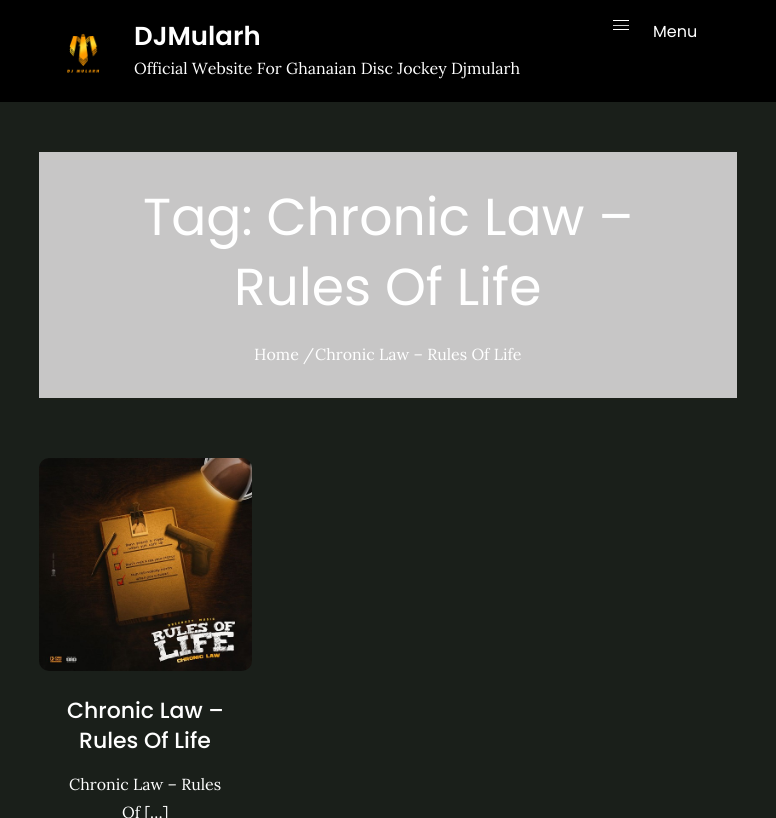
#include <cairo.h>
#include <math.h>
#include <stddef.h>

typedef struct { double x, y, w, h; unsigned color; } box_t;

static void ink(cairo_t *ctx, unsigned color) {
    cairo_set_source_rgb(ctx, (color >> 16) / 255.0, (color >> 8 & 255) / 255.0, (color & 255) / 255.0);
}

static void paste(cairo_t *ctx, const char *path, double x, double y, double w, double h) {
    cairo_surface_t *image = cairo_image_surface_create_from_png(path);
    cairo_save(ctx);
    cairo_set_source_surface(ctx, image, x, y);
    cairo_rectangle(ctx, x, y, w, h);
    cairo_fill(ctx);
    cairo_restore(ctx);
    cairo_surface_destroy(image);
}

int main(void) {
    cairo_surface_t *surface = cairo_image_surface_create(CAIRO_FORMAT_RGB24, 776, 818);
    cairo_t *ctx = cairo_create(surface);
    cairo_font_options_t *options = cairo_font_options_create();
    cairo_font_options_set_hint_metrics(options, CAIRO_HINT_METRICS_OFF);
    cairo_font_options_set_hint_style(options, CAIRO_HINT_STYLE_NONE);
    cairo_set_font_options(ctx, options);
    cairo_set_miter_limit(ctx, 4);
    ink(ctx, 0x1A1F1A);
    cairo_paint(ctx);
    ink(ctx, 0x000000);
    cairo_rectangle(ctx, 0, 0, 776, 102);
    cairo_fill(ctx);
    paste(ctx, "media/1.png", 67, 33, 33, 40);
    cairo_select_font_face(ctx, "Poppins SemiBold", CAIRO_FONT_SLANT_NORMAL, CAIRO_FONT_WEIGHT_NORMAL);
    cairo_set_font_size(ctx, 26);
    ink(ctx, 0xFFFFFF);
    cairo_move_to(ctx, 134, 45);
    cairo_show_text(ctx, "DJMularh");
    cairo_select_font_face(ctx, "Lora", CAIRO_FONT_SLANT_NORMAL, CAIRO_FONT_WEIGHT_NORMAL);
    cairo_set_font_size(ctx, 16);
    cairo_move_to(ctx, 134, 74);
    cairo_show_text(ctx, "Official Website For Ghanaian Disc Jockey Djmularh");
    {
        static const box_t items[] = {
            {613, 20, 16, 1, 0xFFFFFF},
            {613, 25, 16, 1, 0xCCCCCC},
            {613, 29, 16, 1, 0xFFFFFF},
        };
        for (size_t i = 0; i < sizeof items / sizeof *items; i++) {
            ink(ctx, items[i].color);
            cairo_rectangle(ctx, items[i].x, items[i].y, items[i].w, items[i].h);
            cairo_fill(ctx);
        }
    }
    cairo_select_font_face(ctx, "Poppins", CAIRO_FONT_SLANT_NORMAL, CAIRO_FONT_WEIGHT_NORMAL);
    cairo_move_to(ctx, 653, 37);
    cairo_show_text(ctx, "Menu");
    ink(ctx, 0xC7C6C6);
    cairo_rectangle(ctx, 39, 152, 698, 246);
    cairo_fill(ctx);
    cairo_set_font_size(ctx, 52);
    ink(ctx, 0xFFFFFF);
    cairo_move_to(ctx, 143, 235);
    cairo_show_text(ctx, "Tag: Chronic Law –");
    cairo_move_to(ctx, 234, 305);
    cairo_show_text(ctx, "Rules Of Life");
    cairo_select_font_face(ctx, "Lora", CAIRO_FONT_SLANT_NORMAL, CAIRO_FONT_WEIGHT_NORMAL);
    cairo_set_font_size(ctx, 16);
    cairo_move_to(ctx, 254, 360);
    cairo_show_text(ctx, "Home /");
    cairo_move_to(ctx, 315, 360);
    cairo_show_text(ctx, "Chronic Law – Rules Of Life");
    paste(ctx, "media/2.png", 39, 458, 213, 213);
    cairo_select_font_face(ctx, "Poppins Medium", CAIRO_FONT_SLANT_NORMAL, CAIRO_FONT_WEIGHT_NORMAL);
    cairo_set_font_size(ctx, 22);
    cairo_move_to(ctx, 67, 718);
    cairo_show_text(ctx, "Chronic Law –");
    cairo_move_to(ctx, 79, 748);
    cairo_show_text(ctx, "Rules Of Life");
    cairo_select_font_face(ctx, "Lora", CAIRO_FONT_SLANT_NORMAL, CAIRO_FONT_WEIGHT_NORMAL);
    cairo_set_font_size(ctx, 16);
    cairo_move_to(ctx, 69, 790);
    cairo_show_text(ctx, "Chronic Law – Rules");
    cairo_move_to(ctx, 122, 818);
    cairo_show_text(ctx, "Of […]");
    cairo_surface_write_to_png(surface, "image.png");
    cairo_font_options_destroy(options);
    cairo_destroy(ctx);
    cairo_surface_destroy(surface);
    return 0;
}
